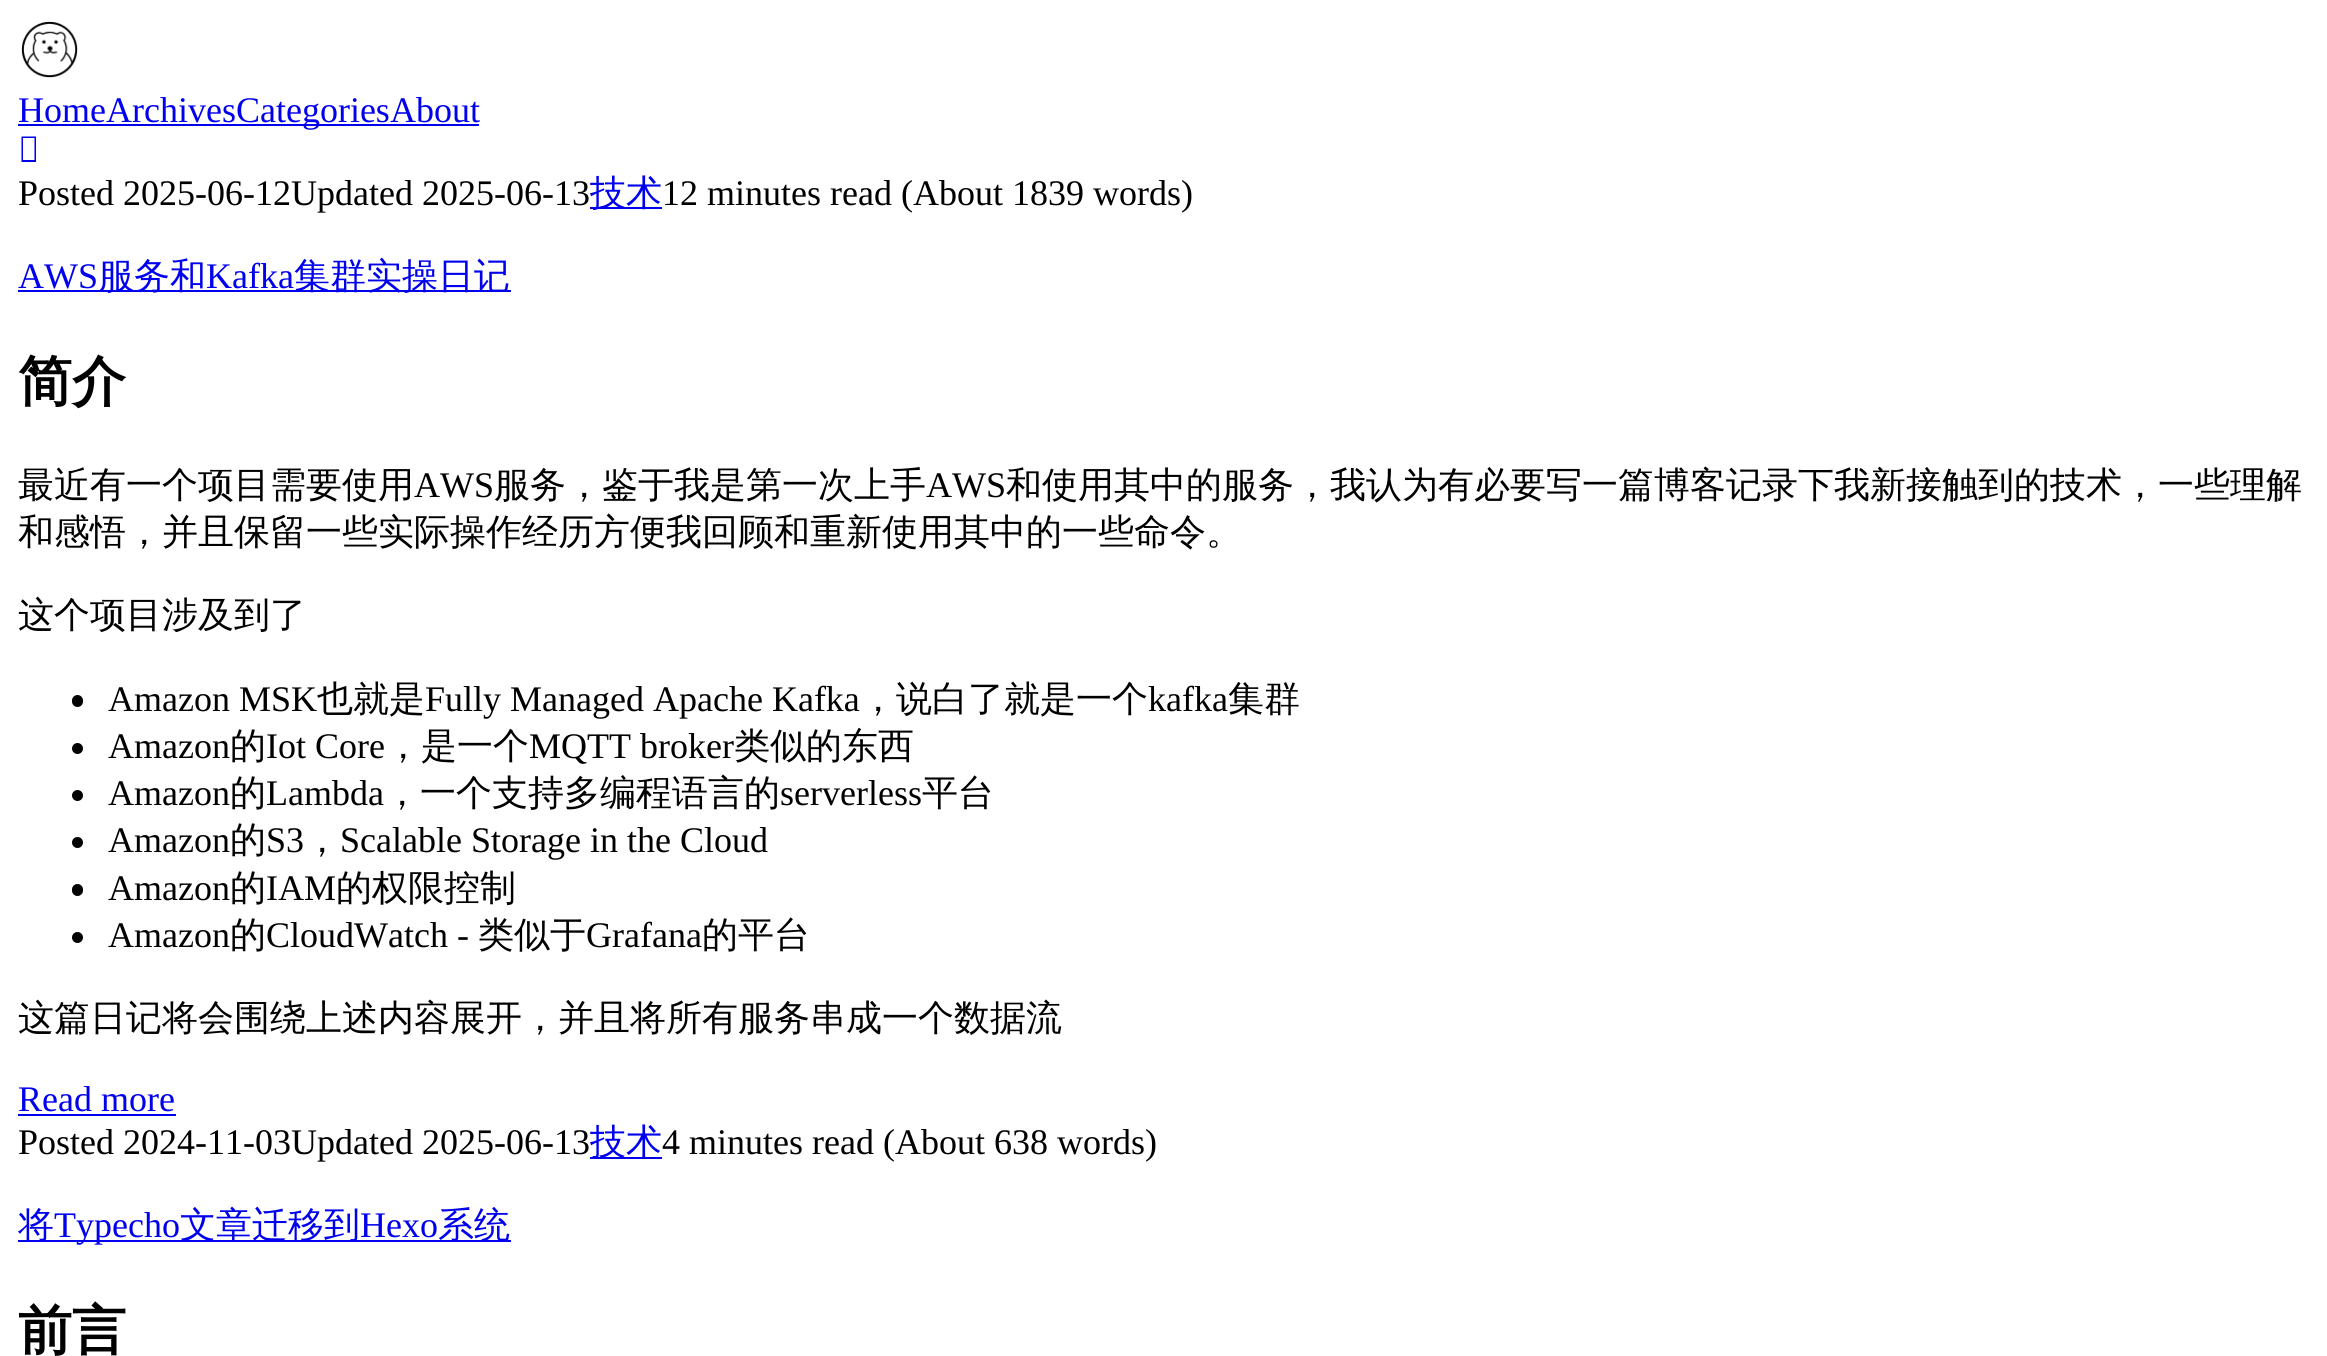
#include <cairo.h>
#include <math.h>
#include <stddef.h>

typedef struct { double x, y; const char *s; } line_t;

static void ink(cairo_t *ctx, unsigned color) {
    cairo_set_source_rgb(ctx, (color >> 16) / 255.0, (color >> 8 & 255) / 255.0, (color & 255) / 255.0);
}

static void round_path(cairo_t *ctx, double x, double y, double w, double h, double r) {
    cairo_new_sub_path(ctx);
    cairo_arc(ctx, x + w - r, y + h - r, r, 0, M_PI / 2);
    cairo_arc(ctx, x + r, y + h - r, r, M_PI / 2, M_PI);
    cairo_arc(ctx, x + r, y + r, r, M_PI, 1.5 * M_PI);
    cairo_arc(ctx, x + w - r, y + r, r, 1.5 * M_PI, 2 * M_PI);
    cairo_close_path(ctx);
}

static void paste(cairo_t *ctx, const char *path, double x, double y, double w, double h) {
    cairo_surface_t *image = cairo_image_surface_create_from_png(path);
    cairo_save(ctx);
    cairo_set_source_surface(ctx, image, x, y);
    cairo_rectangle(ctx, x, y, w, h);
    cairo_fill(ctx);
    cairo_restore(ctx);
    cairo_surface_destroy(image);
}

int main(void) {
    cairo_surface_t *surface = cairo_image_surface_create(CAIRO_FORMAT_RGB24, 2327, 1356);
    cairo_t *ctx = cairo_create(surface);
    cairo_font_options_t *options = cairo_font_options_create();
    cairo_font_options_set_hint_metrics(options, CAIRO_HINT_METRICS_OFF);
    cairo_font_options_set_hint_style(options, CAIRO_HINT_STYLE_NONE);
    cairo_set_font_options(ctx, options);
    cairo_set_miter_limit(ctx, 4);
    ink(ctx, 0xFFFFFF);
    cairo_paint(ctx);
    paste(ctx, "media/1.png", 21, 21, 57, 57);
    ink(ctx, 0x0000EE);
    cairo_rectangle(ctx, 18, 124, 461, 2);
    cairo_fill(ctx);
    cairo_select_font_face(ctx, "Liberation Serif", CAIRO_FONT_SLANT_NORMAL, CAIRO_FONT_WEIGHT_NORMAL);
    cairo_set_font_size(ctx, 36);
    cairo_move_to(ctx, 18, 122);
    cairo_show_text(ctx, "HomeArchivesCategoriesAbout");
    cairo_new_path(ctx);
    cairo_move_to(ctx, 21.5, 162);
    cairo_line_to(ctx, 21.5, 136.5);
    cairo_line_to(ctx, 36, 136.5);
    cairo_line_to(ctx, 36, 162);
    cairo_close_path(ctx);
    cairo_move_to(ctx, 23, 160);
    cairo_line_to(ctx, 34.5, 160);
    cairo_line_to(ctx, 34.5, 138);
    cairo_line_to(ctx, 23, 138);
    cairo_close_path(ctx);
    cairo_fill(ctx);
    ink(ctx, 0x000000);
    cairo_move_to(ctx, 18, 205);
    cairo_show_text(ctx, "Posted 2025-06-12Updated 2025-06-13");
    ink(ctx, 0x0000EE);
    cairo_rectangle(ctx, 590, 207, 72, 2);
    cairo_fill(ctx);
    cairo_select_font_face(ctx, "WenQuanYi Zen Hei Medium", CAIRO_FONT_SLANT_NORMAL, CAIRO_FONT_WEIGHT_NORMAL);
    cairo_move_to(ctx, 590, 205);
    cairo_show_text(ctx, "技术");
    cairo_select_font_face(ctx, "Liberation Serif", CAIRO_FONT_SLANT_NORMAL, CAIRO_FONT_WEIGHT_NORMAL);
    ink(ctx, 0x000000);
    cairo_move_to(ctx, 662, 205);
    cairo_show_text(ctx, "12 minutes read (About 1839 words)");
    ink(ctx, 0x0000EE);
    cairo_move_to(ctx, 18, 288);
    cairo_show_text(ctx, "AWS");
    cairo_rectangle(ctx, 18, 290, 493, 2);
    cairo_fill(ctx);
    cairo_select_font_face(ctx, "WenQuanYi Zen Hei Medium", CAIRO_FONT_SLANT_NORMAL, CAIRO_FONT_WEIGHT_NORMAL);
    cairo_move_to(ctx, 98, 288);
    cairo_show_text(ctx, "服务和");
    cairo_select_font_face(ctx, "Liberation Serif", CAIRO_FONT_SLANT_NORMAL, CAIRO_FONT_WEIGHT_NORMAL);
    cairo_move_to(ctx, 206, 288);
    cairo_show_text(ctx, "Kafka");
    cairo_select_font_face(ctx, "WenQuanYi Zen Hei Medium", CAIRO_FONT_SLANT_NORMAL, CAIRO_FONT_WEIGHT_NORMAL);
    cairo_move_to(ctx, 294, 288);
    cairo_show_text(ctx, "集群实操日记");
    cairo_select_font_face(ctx, "WenQuanYi Zen Hei", CAIRO_FONT_SLANT_NORMAL, CAIRO_FONT_WEIGHT_BOLD);
    cairo_set_font_size(ctx, 54);
    ink(ctx, 0x000000);
    cairo_move_to(ctx, 18, 400);
    cairo_show_text(ctx, "简介");
    cairo_select_font_face(ctx, "WenQuanYi Zen Hei Medium", CAIRO_FONT_SLANT_NORMAL, CAIRO_FONT_WEIGHT_NORMAL);
    cairo_set_font_size(ctx, 36);
    cairo_move_to(ctx, 18, 497);
    cairo_show_text(ctx, "最近有一个项目需要使用");
    cairo_select_font_face(ctx, "Liberation Serif", CAIRO_FONT_SLANT_NORMAL, CAIRO_FONT_WEIGHT_NORMAL);
    cairo_move_to(ctx, 414, 497);
    cairo_show_text(ctx, "AWS");
    cairo_select_font_face(ctx, "WenQuanYi Zen Hei Medium", CAIRO_FONT_SLANT_NORMAL, CAIRO_FONT_WEIGHT_NORMAL);
    cairo_move_to(ctx, 494, 497);
    cairo_show_text(ctx, "服务，鉴于我是第一次上手");
    cairo_select_font_face(ctx, "Liberation Serif", CAIRO_FONT_SLANT_NORMAL, CAIRO_FONT_WEIGHT_NORMAL);
    cairo_move_to(ctx, 926, 497);
    cairo_show_text(ctx, "AWS");
    cairo_select_font_face(ctx, "WenQuanYi Zen Hei Medium", CAIRO_FONT_SLANT_NORMAL, CAIRO_FONT_WEIGHT_NORMAL);
    {
        static const line_t items[] = {
            {1006, 497, "和使用其中的服务，我认为有必要写一篇博客记录下我新接触到的技术，一些理解"},
            {18, 544, "和感悟，并且保留一些实际操作经历方便我回顾和重新使用其中的一些命令。"},
            {18, 627, "这个项目涉及到了"},
        };
        for (size_t i = 0; i < sizeof items / sizeof *items; i++) {
            cairo_move_to(ctx, items[i].x, items[i].y);
            cairo_show_text(ctx, items[i].s);
        }
    }
    round_path(ctx, 72, 695, 11, 12, 5.5);
    cairo_fill(ctx);
    cairo_select_font_face(ctx, "Liberation Serif", CAIRO_FONT_SLANT_NORMAL, CAIRO_FONT_WEIGHT_NORMAL);
    cairo_move_to(ctx, 108, 711);
    cairo_show_text(ctx, "Amazon MSK");
    cairo_select_font_face(ctx, "WenQuanYi Zen Hei Medium", CAIRO_FONT_SLANT_NORMAL, CAIRO_FONT_WEIGHT_NORMAL);
    cairo_move_to(ctx, 317, 711);
    cairo_show_text(ctx, "也就是");
    cairo_select_font_face(ctx, "Liberation Serif", CAIRO_FONT_SLANT_NORMAL, CAIRO_FONT_WEIGHT_NORMAL);
    cairo_move_to(ctx, 425, 711);
    cairo_show_text(ctx, "Fully Managed Apache Kafka");
    cairo_select_font_face(ctx, "WenQuanYi Zen Hei Medium", CAIRO_FONT_SLANT_NORMAL, CAIRO_FONT_WEIGHT_NORMAL);
    cairo_move_to(ctx, 860, 711);
    cairo_show_text(ctx, "，说白了就是一个");
    cairo_select_font_face(ctx, "Liberation Serif", CAIRO_FONT_SLANT_NORMAL, CAIRO_FONT_WEIGHT_NORMAL);
    cairo_move_to(ctx, 1148, 711);
    cairo_show_text(ctx, "kafka");
    cairo_select_font_face(ctx, "WenQuanYi Zen Hei Medium", CAIRO_FONT_SLANT_NORMAL, CAIRO_FONT_WEIGHT_NORMAL);
    cairo_move_to(ctx, 1228, 711);
    cairo_show_text(ctx, "集群");
    cairo_new_path(ctx);
    cairo_arc(ctx, 77.5, 748.5, 5.5, 0, 2 * M_PI);
    cairo_fill(ctx);
    cairo_select_font_face(ctx, "Liberation Serif", CAIRO_FONT_SLANT_NORMAL, CAIRO_FONT_WEIGHT_NORMAL);
    cairo_move_to(ctx, 108, 758);
    cairo_show_text(ctx, "Amazon");
    cairo_select_font_face(ctx, "WenQuanYi Zen Hei Medium", CAIRO_FONT_SLANT_NORMAL, CAIRO_FONT_WEIGHT_NORMAL);
    cairo_move_to(ctx, 230, 758);
    cairo_show_text(ctx, "的");
    cairo_select_font_face(ctx, "Liberation Serif", CAIRO_FONT_SLANT_NORMAL, CAIRO_FONT_WEIGHT_NORMAL);
    cairo_move_to(ctx, 266, 758);
    cairo_show_text(ctx, "Iot Core");
    cairo_select_font_face(ctx, "WenQuanYi Zen Hei Medium", CAIRO_FONT_SLANT_NORMAL, CAIRO_FONT_WEIGHT_NORMAL);
    cairo_move_to(ctx, 385, 758);
    cairo_show_text(ctx, "，是一个");
    cairo_select_font_face(ctx, "Liberation Serif", CAIRO_FONT_SLANT_NORMAL, CAIRO_FONT_WEIGHT_NORMAL);
    cairo_move_to(ctx, 529, 758);
    cairo_show_text(ctx, "MQTT broker");
    cairo_select_font_face(ctx, "WenQuanYi Zen Hei Medium", CAIRO_FONT_SLANT_NORMAL, CAIRO_FONT_WEIGHT_NORMAL);
    cairo_move_to(ctx, 734, 758);
    cairo_show_text(ctx, "类似的东西");
    cairo_new_path(ctx);
    cairo_arc(ctx, 77.5, 795.5, 5.5, 0, 2 * M_PI);
    cairo_fill(ctx);
    cairo_select_font_face(ctx, "Liberation Serif", CAIRO_FONT_SLANT_NORMAL, CAIRO_FONT_WEIGHT_NORMAL);
    cairo_move_to(ctx, 108, 805);
    cairo_show_text(ctx, "Amazon");
    cairo_select_font_face(ctx, "WenQuanYi Zen Hei Medium", CAIRO_FONT_SLANT_NORMAL, CAIRO_FONT_WEIGHT_NORMAL);
    cairo_move_to(ctx, 230, 805);
    cairo_show_text(ctx, "的");
    cairo_select_font_face(ctx, "Liberation Serif", CAIRO_FONT_SLANT_NORMAL, CAIRO_FONT_WEIGHT_NORMAL);
    cairo_move_to(ctx, 266, 805);
    cairo_show_text(ctx, "Lambda");
    cairo_select_font_face(ctx, "WenQuanYi Zen Hei Medium", CAIRO_FONT_SLANT_NORMAL, CAIRO_FONT_WEIGHT_NORMAL);
    cairo_move_to(ctx, 384, 805);
    cairo_show_text(ctx, "，一个支持多编程语言的");
    cairo_select_font_face(ctx, "Liberation Serif", CAIRO_FONT_SLANT_NORMAL, CAIRO_FONT_WEIGHT_NORMAL);
    cairo_move_to(ctx, 780, 805);
    cairo_show_text(ctx, "serverless");
    cairo_select_font_face(ctx, "WenQuanYi Zen Hei Medium", CAIRO_FONT_SLANT_NORMAL, CAIRO_FONT_WEIGHT_NORMAL);
    cairo_move_to(ctx, 922, 805);
    cairo_show_text(ctx, "平台");
    cairo_new_path(ctx);
    cairo_arc(ctx, 77.5, 842.5, 5.5, 0, 2 * M_PI);
    cairo_fill(ctx);
    cairo_select_font_face(ctx, "Liberation Serif", CAIRO_FONT_SLANT_NORMAL, CAIRO_FONT_WEIGHT_NORMAL);
    cairo_move_to(ctx, 108, 852);
    cairo_show_text(ctx, "Amazon");
    cairo_select_font_face(ctx, "WenQuanYi Zen Hei Medium", CAIRO_FONT_SLANT_NORMAL, CAIRO_FONT_WEIGHT_NORMAL);
    cairo_move_to(ctx, 230, 852);
    cairo_show_text(ctx, "的");
    cairo_select_font_face(ctx, "Liberation Serif", CAIRO_FONT_SLANT_NORMAL, CAIRO_FONT_WEIGHT_NORMAL);
    cairo_move_to(ctx, 266, 852);
    cairo_show_text(ctx, "S3");
    cairo_move_to(ctx, 340, 852);
    cairo_show_text(ctx, "Scalable Storage in the Cloud");
    cairo_select_font_face(ctx, "WenQuanYi Zen Hei Medium", CAIRO_FONT_SLANT_NORMAL, CAIRO_FONT_WEIGHT_NORMAL);
    cairo_move_to(ctx, 304, 852);
    cairo_show_text(ctx, "，");
    round_path(ctx, 72, 884, 11, 12, 5.5);
    cairo_fill(ctx);
    cairo_select_font_face(ctx, "Liberation Serif", CAIRO_FONT_SLANT_NORMAL, CAIRO_FONT_WEIGHT_NORMAL);
    cairo_move_to(ctx, 108, 900);
    cairo_show_text(ctx, "Amazon");
    cairo_select_font_face(ctx, "WenQuanYi Zen Hei Medium", CAIRO_FONT_SLANT_NORMAL, CAIRO_FONT_WEIGHT_NORMAL);
    cairo_move_to(ctx, 230, 900);
    cairo_show_text(ctx, "的");
    cairo_select_font_face(ctx, "Liberation Serif", CAIRO_FONT_SLANT_NORMAL, CAIRO_FONT_WEIGHT_NORMAL);
    cairo_move_to(ctx, 266, 900);
    cairo_show_text(ctx, "IAM");
    cairo_select_font_face(ctx, "WenQuanYi Zen Hei Medium", CAIRO_FONT_SLANT_NORMAL, CAIRO_FONT_WEIGHT_NORMAL);
    cairo_move_to(ctx, 336, 900);
    cairo_show_text(ctx, "的权限控制");
    cairo_new_path(ctx);
    cairo_arc(ctx, 77.5, 937.5, 5.5, 0, 2 * M_PI);
    cairo_fill(ctx);
    cairo_select_font_face(ctx, "Liberation Serif", CAIRO_FONT_SLANT_NORMAL, CAIRO_FONT_WEIGHT_NORMAL);
    cairo_move_to(ctx, 108, 947);
    cairo_show_text(ctx, "Amazon");
    cairo_select_font_face(ctx, "WenQuanYi Zen Hei Medium", CAIRO_FONT_SLANT_NORMAL, CAIRO_FONT_WEIGHT_NORMAL);
    cairo_move_to(ctx, 230, 947);
    cairo_show_text(ctx, "的");
    cairo_select_font_face(ctx, "Liberation Serif", CAIRO_FONT_SLANT_NORMAL, CAIRO_FONT_WEIGHT_NORMAL);
    cairo_move_to(ctx, 266, 947);
    cairo_show_text(ctx, "CloudWatch -");
    cairo_select_font_face(ctx, "WenQuanYi Zen Hei Medium", CAIRO_FONT_SLANT_NORMAL, CAIRO_FONT_WEIGHT_NORMAL);
    cairo_move_to(ctx, 478, 947);
    cairo_show_text(ctx, "类似于");
    cairo_select_font_face(ctx, "Liberation Serif", CAIRO_FONT_SLANT_NORMAL, CAIRO_FONT_WEIGHT_NORMAL);
    cairo_move_to(ctx, 586, 947);
    cairo_show_text(ctx, "Grafana");
    cairo_select_font_face(ctx, "WenQuanYi Zen Hei Medium", CAIRO_FONT_SLANT_NORMAL, CAIRO_FONT_WEIGHT_NORMAL);
    cairo_move_to(ctx, 702, 947);
    cairo_show_text(ctx, "的平台");
    cairo_move_to(ctx, 18, 1030);
    cairo_show_text(ctx, "这篇日记将会围绕上述内容展开，并且将所有服务串成一个数据流");
    cairo_select_font_face(ctx, "Liberation Serif", CAIRO_FONT_SLANT_NORMAL, CAIRO_FONT_WEIGHT_NORMAL);
    ink(ctx, 0x0000EE);
    cairo_move_to(ctx, 18, 1111);
    cairo_show_text(ctx, "Read more");
    cairo_rectangle(ctx, 18, 1114, 158, 2);
    cairo_fill(ctx);
    ink(ctx, 0x000000);
    cairo_move_to(ctx, 18, 1154);
    cairo_show_text(ctx, "Posted 2024-11-03Updated 2025-06-13");
    ink(ctx, 0x0000EE);
    cairo_rectangle(ctx, 590, 1157, 72, 2);
    cairo_fill(ctx);
    cairo_select_font_face(ctx, "WenQuanYi Zen Hei Medium", CAIRO_FONT_SLANT_NORMAL, CAIRO_FONT_WEIGHT_NORMAL);
    cairo_move_to(ctx, 590, 1154);
    cairo_show_text(ctx, "技术");
    cairo_select_font_face(ctx, "Liberation Serif", CAIRO_FONT_SLANT_NORMAL, CAIRO_FONT_WEIGHT_NORMAL);
    ink(ctx, 0x000000);
    cairo_move_to(ctx, 662, 1154);
    cairo_show_text(ctx, "4 minutes read (About 638 words)");
    ink(ctx, 0x0000EE);
    cairo_rectangle(ctx, 18, 1240, 493, 2);
    cairo_fill(ctx);
    cairo_select_font_face(ctx, "WenQuanYi Zen Hei Medium", CAIRO_FONT_SLANT_NORMAL, CAIRO_FONT_WEIGHT_NORMAL);
    cairo_move_to(ctx, 18, 1237);
    cairo_show_text(ctx, "将");
    cairo_select_font_face(ctx, "Liberation Serif", CAIRO_FONT_SLANT_NORMAL, CAIRO_FONT_WEIGHT_NORMAL);
    cairo_move_to(ctx, 54, 1237);
    cairo_show_text(ctx, "Typecho");
    cairo_select_font_face(ctx, "WenQuanYi Zen Hei Medium", CAIRO_FONT_SLANT_NORMAL, CAIRO_FONT_WEIGHT_NORMAL);
    cairo_move_to(ctx, 180, 1237);
    cairo_show_text(ctx, "文章迁移到");
    cairo_select_font_face(ctx, "Liberation Serif", CAIRO_FONT_SLANT_NORMAL, CAIRO_FONT_WEIGHT_NORMAL);
    cairo_move_to(ctx, 360, 1237);
    cairo_show_text(ctx, "Hexo");
    cairo_select_font_face(ctx, "WenQuanYi Zen Hei Medium", CAIRO_FONT_SLANT_NORMAL, CAIRO_FONT_WEIGHT_NORMAL);
    cairo_move_to(ctx, 438, 1237);
    cairo_show_text(ctx, "系统");
    cairo_select_font_face(ctx, "WenQuanYi Zen Hei", CAIRO_FONT_SLANT_NORMAL, CAIRO_FONT_WEIGHT_BOLD);
    cairo_set_font_size(ctx, 54);
    ink(ctx, 0x000000);
    cairo_move_to(ctx, 18, 1349);
    cairo_show_text(ctx, "前言");
    cairo_surface_write_to_png(surface, "image.png");
    cairo_font_options_destroy(options);
    cairo_destroy(ctx);
    cairo_surface_destroy(surface);
    return 0;
}
